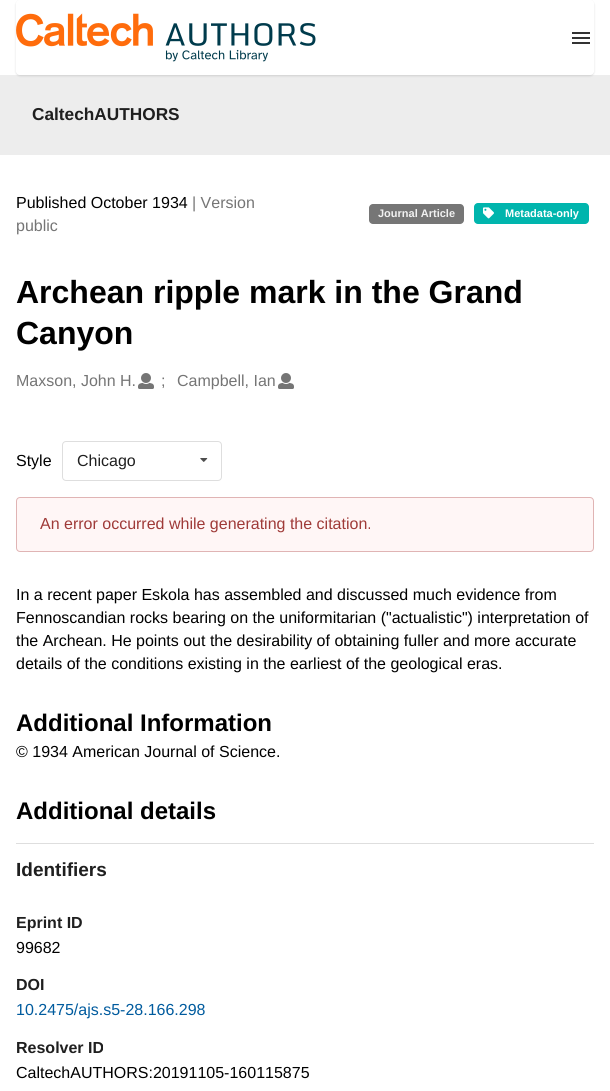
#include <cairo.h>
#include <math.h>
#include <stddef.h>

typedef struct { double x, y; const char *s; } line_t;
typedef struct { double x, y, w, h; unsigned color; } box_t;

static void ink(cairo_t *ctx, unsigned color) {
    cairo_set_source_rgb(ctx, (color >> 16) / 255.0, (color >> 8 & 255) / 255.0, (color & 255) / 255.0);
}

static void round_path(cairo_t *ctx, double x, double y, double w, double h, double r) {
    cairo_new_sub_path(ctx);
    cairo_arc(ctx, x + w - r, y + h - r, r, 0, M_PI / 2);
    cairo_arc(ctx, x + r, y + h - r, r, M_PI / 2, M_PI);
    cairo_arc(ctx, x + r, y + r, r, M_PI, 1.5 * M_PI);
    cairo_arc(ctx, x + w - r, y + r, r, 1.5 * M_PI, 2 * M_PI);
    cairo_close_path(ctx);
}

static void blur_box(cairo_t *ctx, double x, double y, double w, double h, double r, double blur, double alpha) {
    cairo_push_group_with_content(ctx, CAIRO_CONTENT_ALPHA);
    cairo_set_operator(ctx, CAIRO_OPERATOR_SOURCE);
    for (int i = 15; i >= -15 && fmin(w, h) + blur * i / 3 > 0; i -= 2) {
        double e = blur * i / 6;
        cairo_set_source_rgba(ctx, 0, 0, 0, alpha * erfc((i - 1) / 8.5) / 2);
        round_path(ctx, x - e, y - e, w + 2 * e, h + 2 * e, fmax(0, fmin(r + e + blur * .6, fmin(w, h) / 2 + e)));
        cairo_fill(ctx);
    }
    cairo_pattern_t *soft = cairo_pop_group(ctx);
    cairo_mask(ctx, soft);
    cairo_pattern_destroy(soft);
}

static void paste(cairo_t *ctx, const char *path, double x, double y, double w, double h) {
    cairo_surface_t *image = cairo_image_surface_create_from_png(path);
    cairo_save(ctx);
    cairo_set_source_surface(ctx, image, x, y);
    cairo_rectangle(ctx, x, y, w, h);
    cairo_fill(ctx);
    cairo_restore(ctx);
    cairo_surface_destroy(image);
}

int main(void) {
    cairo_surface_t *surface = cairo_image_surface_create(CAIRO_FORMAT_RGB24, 610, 1091);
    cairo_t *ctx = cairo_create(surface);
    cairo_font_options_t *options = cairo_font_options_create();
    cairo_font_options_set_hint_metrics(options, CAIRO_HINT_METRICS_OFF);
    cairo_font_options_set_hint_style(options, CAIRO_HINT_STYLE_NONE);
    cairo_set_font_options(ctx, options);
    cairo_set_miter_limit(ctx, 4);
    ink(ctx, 0xFFFFFF);
    cairo_paint(ctx);
    ink(ctx, 0xEDEDED);
    cairo_rectangle(ctx, 0, 75, 610, 80);
    cairo_fill(ctx);
    cairo_save(ctx);
    cairo_set_fill_rule(ctx, CAIRO_FILL_RULE_EVEN_ODD);
    cairo_new_path(ctx);
    cairo_move_to(ctx, 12, 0);
    cairo_line_to(ctx, 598, 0);
    cairo_line_to(ctx, 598, 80);
    cairo_line_to(ctx, 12, 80);
    cairo_close_path(ctx);
    cairo_move_to(ctx, 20, 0);
    cairo_line_to(ctx, 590, 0);
    cairo_curve_to(ctx, 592, 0, 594, 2, 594, 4);
    cairo_line_to(ctx, 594, 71);
    cairo_curve_to(ctx, 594, 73, 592, 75, 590, 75);
    cairo_line_to(ctx, 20, 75);
    cairo_curve_to(ctx, 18, 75, 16, 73, 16, 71);
    cairo_line_to(ctx, 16, 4);
    cairo_curve_to(ctx, 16, 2, 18, 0, 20, 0);
    cairo_close_path(ctx);
    cairo_clip(ctx);
    ink(ctx, 0x222426);
    blur_box(ctx, 16, 1, 578, 75, 4, 1, 0.15);
    cairo_restore(ctx);
    paste(ctx, "media/1.png", 16, 13, 300, 49);
    {
        static const box_t items[] = {
            {572, 37, 18, 2, 0x333333},
            {572, 32, 18, 2, 0x333333},
            {572, 42, 18, 2, 0x333333},
        };
        for (size_t i = 0; i < sizeof items / sizeof *items; i++) {
            ink(ctx, items[i].color);
            cairo_rectangle(ctx, items[i].x, items[i].y, items[i].w, items[i].h);
            cairo_fill(ctx);
        }
    }
    cairo_select_font_face(ctx, "Liberation Sans", CAIRO_FONT_SLANT_NORMAL, CAIRO_FONT_WEIGHT_BOLD);
    cairo_set_font_size(ctx, 17.25);
    ink(ctx, 0x1F1F1F);
    cairo_move_to(ctx, 32, 120);
    cairo_show_text(ctx, "CaltechAUTHORS");
    cairo_select_font_face(ctx, "Liberation Sans", CAIRO_FONT_SLANT_NORMAL, CAIRO_FONT_WEIGHT_NORMAL);
    cairo_set_font_size(ctx, 16);
    ink(ctx, 0x000000);
    cairo_move_to(ctx, 16, 208);
    cairo_show_text(ctx, "Published October 1934");
    ink(ctx, 0x757575);
    cairo_move_to(ctx, 192, 208);
    cairo_show_text(ctx, "| Version");
    cairo_move_to(ctx, 16, 231);
    cairo_show_text(ctx, "public");
    ink(ctx, 0x767676);
    round_path(ctx, 369, 204, 95, 20, 4);
    cairo_fill(ctx);
    cairo_select_font_face(ctx, "Liberation Sans", CAIRO_FONT_SLANT_NORMAL, CAIRO_FONT_WEIGHT_BOLD);
    cairo_set_font_size(ctx, 11);
    ink(ctx, 0xF1F1F1);
    cairo_move_to(ctx, 378, 217);
    cairo_show_text(ctx, "Journal Article");
    ink(ctx, 0x00B5AD);
    round_path(ctx, 474, 203, 115, 21, 4);
    cairo_fill(ctx);
    paste(ctx, "media/2.png", 483, 207, 11, 12);
    ink(ctx, 0xFFFFFF);
    cairo_move_to(ctx, 505, 217);
    cairo_show_text(ctx, "Metadata-only");
    cairo_set_font_size(ctx, 32);
    ink(ctx, 0x000000);
    cairo_move_to(ctx, 16, 303);
    cairo_show_text(ctx, "Archean ripple mark in the Grand");
    cairo_move_to(ctx, 16, 344);
    cairo_show_text(ctx, "Canyon");
    cairo_select_font_face(ctx, "Liberation Sans", CAIRO_FONT_SLANT_NORMAL, CAIRO_FONT_WEIGHT_NORMAL);
    cairo_set_font_size(ctx, 16);
    ink(ctx, 0x757575);
    cairo_move_to(ctx, 16, 386);
    cairo_show_text(ctx, "Maxson, John H.");
    paste(ctx, "media/3.png", 138, 373, 16, 16);
    cairo_move_to(ctx, 161, 386);
    cairo_show_text(ctx, ";");
    cairo_move_to(ctx, 177, 386);
    cairo_show_text(ctx, "Campbell, Ian");
    paste(ctx, "media/3.png", 278, 373, 16, 16);
    ink(ctx, 0x000000);
    cairo_move_to(ctx, 16, 466);
    cairo_show_text(ctx, "Style");
    round_path(ctx, 62.5, 441.5, 159, 39, 3.5);
    ink(ctx, 0xDEDEDE);
    cairo_set_line_width(ctx, 1);
    cairo_stroke(ctx);
    ink(ctx, 0x1F1F1F);
    cairo_move_to(ctx, 77, 466);
    cairo_show_text(ctx, "Chicago");
    paste(ctx, "media/4.png", 200, 458, 8, 4);
    ink(ctx, 0xFFF6F6);
    round_path(ctx, 16.5, 497.5, 577, 54, 3.5);
    cairo_fill_preserve(ctx);
    ink(ctx, 0xE0B4B4);
    cairo_stroke(ctx);
    ink(ctx, 0x9F3A38);
    cairo_move_to(ctx, 40, 529);
    cairo_show_text(ctx, "An error occurred while generating the citation.");
    ink(ctx, 0x000000);
    {
        static const line_t items[] = {
            {16, 600, "In a recent paper Eskola has assembled and discussed much evidence from"},
            {16, 623, "Fennoscandian rocks bearing on the uniformitarian (\"actualistic\") interpretation of"},
            {16, 646, "the Archean. He points out the desirability of obtaining fuller and more accurate"},
            {16, 669, "details of the conditions existing in the earliest of the geological eras."},
        };
        for (size_t i = 0; i < sizeof items / sizeof *items; i++) {
            cairo_move_to(ctx, items[i].x, items[i].y);
            cairo_show_text(ctx, items[i].s);
        }
    }
    cairo_select_font_face(ctx, "Liberation Sans", CAIRO_FONT_SLANT_NORMAL, CAIRO_FONT_WEIGHT_BOLD);
    cairo_set_font_size(ctx, 24);
    cairo_move_to(ctx, 16, 731);
    cairo_show_text(ctx, "Additional Information");
    cairo_select_font_face(ctx, "Liberation Sans", CAIRO_FONT_SLANT_NORMAL, CAIRO_FONT_WEIGHT_NORMAL);
    cairo_set_font_size(ctx, 16);
    cairo_move_to(ctx, 16, 757);
    cairo_show_text(ctx, "© 1934 American Journal of Science.");
    cairo_select_font_face(ctx, "Liberation Sans", CAIRO_FONT_SLANT_NORMAL, CAIRO_FONT_WEIGHT_BOLD);
    cairo_set_font_size(ctx, 24);
    cairo_move_to(ctx, 16, 819);
    cairo_show_text(ctx, "Additional details");
    ink(ctx, 0xDEDEDE);
    cairo_rectangle(ctx, 16, 843, 578, 1);
    cairo_fill(ctx);
    cairo_set_font_size(ctx, 19);
    ink(ctx, 0x1F1F1F);
    cairo_move_to(ctx, 16, 876);
    cairo_show_text(ctx, "Identifiers");
    cairo_set_font_size(ctx, 16);
    cairo_move_to(ctx, 16, 928);
    cairo_show_text(ctx, "Eprint ID");
    cairo_select_font_face(ctx, "Liberation Sans", CAIRO_FONT_SLANT_NORMAL, CAIRO_FONT_WEIGHT_NORMAL);
    ink(ctx, 0x000000);
    cairo_move_to(ctx, 16, 953);
    cairo_show_text(ctx, "99682");
    cairo_select_font_face(ctx, "Liberation Sans", CAIRO_FONT_SLANT_NORMAL, CAIRO_FONT_WEIGHT_BOLD);
    ink(ctx, 0x1F1F1F);
    cairo_move_to(ctx, 16, 990);
    cairo_show_text(ctx, "DOI");
    cairo_select_font_face(ctx, "Liberation Sans", CAIRO_FONT_SLANT_NORMAL, CAIRO_FONT_WEIGHT_NORMAL);
    ink(ctx, 0x005B9E);
    cairo_move_to(ctx, 16, 1015);
    cairo_show_text(ctx, "10.2475/ajs.s5-28.166.298");
    cairo_select_font_face(ctx, "Liberation Sans", CAIRO_FONT_SLANT_NORMAL, CAIRO_FONT_WEIGHT_BOLD);
    ink(ctx, 0x1F1F1F);
    cairo_move_to(ctx, 16, 1053);
    cairo_show_text(ctx, "Resolver ID");
    cairo_select_font_face(ctx, "Liberation Sans", CAIRO_FONT_SLANT_NORMAL, CAIRO_FONT_WEIGHT_NORMAL);
    ink(ctx, 0x000000);
    cairo_move_to(ctx, 16, 1078);
    cairo_show_text(ctx, "CaltechAUTHORS:20191105-160115875");
    cairo_surface_write_to_png(surface, "image.png");
    cairo_font_options_destroy(options);
    cairo_destroy(ctx);
    cairo_surface_destroy(surface);
    return 0;
}
